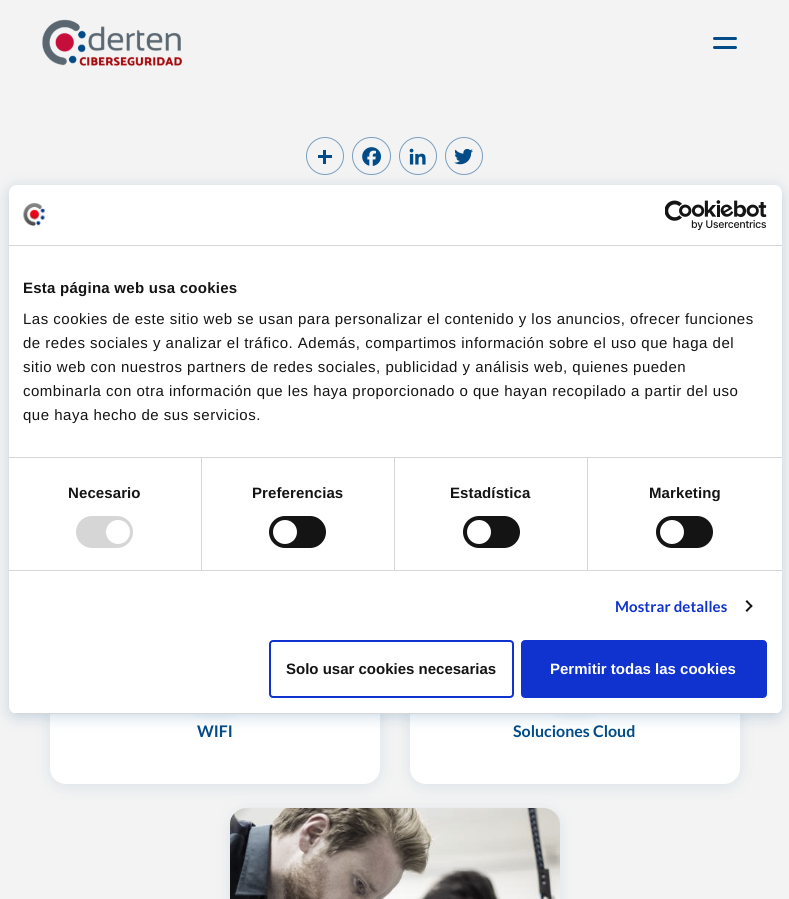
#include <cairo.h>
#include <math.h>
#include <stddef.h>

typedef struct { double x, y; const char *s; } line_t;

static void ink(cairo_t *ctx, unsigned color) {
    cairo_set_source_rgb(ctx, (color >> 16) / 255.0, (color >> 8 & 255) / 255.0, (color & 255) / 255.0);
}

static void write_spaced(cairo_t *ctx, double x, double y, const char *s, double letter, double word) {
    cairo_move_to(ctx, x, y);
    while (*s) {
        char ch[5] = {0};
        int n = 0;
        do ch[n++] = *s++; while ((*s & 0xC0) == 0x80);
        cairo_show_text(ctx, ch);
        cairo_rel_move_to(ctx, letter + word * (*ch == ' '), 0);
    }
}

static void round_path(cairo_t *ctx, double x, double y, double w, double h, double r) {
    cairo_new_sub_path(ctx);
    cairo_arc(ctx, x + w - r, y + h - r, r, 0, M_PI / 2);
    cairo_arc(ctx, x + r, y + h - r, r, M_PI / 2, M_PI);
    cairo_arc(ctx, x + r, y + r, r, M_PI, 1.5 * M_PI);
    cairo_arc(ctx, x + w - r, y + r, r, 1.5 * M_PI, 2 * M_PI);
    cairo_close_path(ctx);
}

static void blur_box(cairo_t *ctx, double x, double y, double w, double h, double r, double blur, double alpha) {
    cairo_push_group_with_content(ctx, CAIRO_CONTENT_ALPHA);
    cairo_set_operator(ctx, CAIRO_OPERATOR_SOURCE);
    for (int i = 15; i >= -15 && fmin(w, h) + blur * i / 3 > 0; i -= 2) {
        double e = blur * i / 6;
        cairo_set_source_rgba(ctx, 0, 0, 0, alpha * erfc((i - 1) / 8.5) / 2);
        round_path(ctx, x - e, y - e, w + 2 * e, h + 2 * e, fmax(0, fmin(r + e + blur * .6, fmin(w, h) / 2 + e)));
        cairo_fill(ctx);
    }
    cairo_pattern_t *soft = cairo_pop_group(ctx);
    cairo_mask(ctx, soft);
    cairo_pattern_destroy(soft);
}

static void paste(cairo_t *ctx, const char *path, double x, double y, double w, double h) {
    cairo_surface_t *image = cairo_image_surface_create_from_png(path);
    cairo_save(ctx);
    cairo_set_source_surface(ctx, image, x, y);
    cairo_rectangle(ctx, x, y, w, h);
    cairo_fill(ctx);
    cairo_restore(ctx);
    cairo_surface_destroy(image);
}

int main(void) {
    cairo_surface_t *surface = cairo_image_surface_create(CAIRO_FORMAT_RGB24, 789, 899);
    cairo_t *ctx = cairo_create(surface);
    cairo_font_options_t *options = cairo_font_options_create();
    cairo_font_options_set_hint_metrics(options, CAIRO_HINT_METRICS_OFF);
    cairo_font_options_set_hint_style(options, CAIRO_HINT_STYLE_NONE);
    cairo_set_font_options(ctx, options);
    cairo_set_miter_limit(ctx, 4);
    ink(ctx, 0xF3F3F3);
    cairo_paint(ctx);
    cairo_arc(ctx, 325, 156, 18.5, 0, 2 * M_PI);
    ink(ctx, 0x7A9FBE);
    cairo_set_line_width(ctx, 1);
    cairo_stroke(ctx);
    round_path(ctx, 352.5, 137.5, 38, 37, 18.5);
    cairo_stroke(ctx);
    paste(ctx, "media/4.png", 362, 147, 20, 19);
    cairo_arc(ctx, 418, 156, 18.5, 0, 2 * M_PI);
    cairo_stroke(ctx);
    paste(ctx, "media/5.png", 409, 148, 17, 17);
    cairo_arc(ctx, 464, 156, 18.5, 0, 2 * M_PI);
    cairo_stroke(ctx);
    paste(ctx, "media/6.png", 454, 148, 19, 17);
    ink(ctx, 0x004B88);
    blur_box(ctx, 50, 346, 330, 441, 16, 7.5, 0.1);
    ink(ctx, 0xFFFFFF);
    round_path(ctx, 50, 343, 330, 441, 16);
    cairo_fill(ctx);
    ink(ctx, 0x004B88);
    blur_box(ctx, 410, 346, 330, 441, 16, 7.5, 0.1);
    ink(ctx, 0xFFFFFF);
    round_path(ctx, 410, 343, 330, 441, 16);
    cairo_fill(ctx);
    ink(ctx, 0x004B88);
    blur_box(ctx, 9, 188, 773, 529, 8, 7.5, 0.2);
    blur_box(ctx, 179, 640, 72, 72, 36, 7.5, 0.1);
    blur_box(ctx, 539, 640, 72, 72, 36, 7.5, 0.1);
    ink(ctx, 0xFFFFFF);
    round_path(ctx, 9, 185, 773, 529, 8);
    cairo_fill(ctx);
    ink(ctx, 0xD6D6D6);
    cairo_rectangle(ctx, 9, 245, 773, 1);
    cairo_fill(ctx);
    paste(ctx, "media/1.png", 23, 203, 22, 24);
    paste(ctx, "media/2.png", 665, 200, 102, 30);
    cairo_rectangle(ctx, 9, 457, 773, 1);
    cairo_fill(ctx);
    cairo_select_font_face(ctx, "Liberation Sans", CAIRO_FONT_SLANT_NORMAL, CAIRO_FONT_WEIGHT_BOLD);
    cairo_set_font_size(ctx, 15);
    ink(ctx, 0x141414);
    write_spaced(ctx, 23, 293, "Esta página web usa cookies", 0.25, 0);
    cairo_select_font_face(ctx, "Liberation Sans", CAIRO_FONT_SLANT_NORMAL, CAIRO_FONT_WEIGHT_NORMAL);
    {
        static const line_t items[] = {
            {23, 324, "Las cookies de este sitio web se usan para personalizar el contenido y los anuncios, ofrecer funciones"},
            {23, 348, "de redes sociales y analizar el tráfico. Además, compartimos información sobre el uso que haga del"},
            {23, 372, "sitio web con nuestros partners de redes sociales, publicidad y análisis web, quienes pueden"},
            {23, 396, "combinarla con otra información que les haya proporcionado o que hayan recopilado a partir del uso"},
            {23, 420, "que haya hecho de sus servicios."},
        };
        for (size_t i = 0; i < sizeof items / sizeof *items; i++) {
            write_spaced(ctx, items[i].x, items[i].y, items[i].s, 0.5, 0);
        }
    }
    ink(ctx, 0xD6D6D6);
    cairo_rectangle(ctx, 9, 570, 773, 1);
    cairo_fill(ctx);
    cairo_rectangle(ctx, 201, 458, 1, 112);
    cairo_fill(ctx);
    cairo_select_font_face(ctx, "Liberation Sans", CAIRO_FONT_SLANT_NORMAL, CAIRO_FONT_WEIGHT_BOLD);
    ink(ctx, 0x141414);
    write_spaced(ctx, 68, 498, "Necesario", 0.1, 0);
    ink(ctx, 0xD6D6D6);
    round_path(ctx, 76, 516, 57, 32, 16);
    cairo_fill(ctx);
    ink(ctx, 0xFFFFFF);
    cairo_arc(ctx, 118, 532, 12, 0, 2 * M_PI);
    cairo_fill(ctx);
    ink(ctx, 0xD6D6D6);
    cairo_rectangle(ctx, 394, 458, 1, 112);
    cairo_fill(ctx);
    ink(ctx, 0x141414);
    write_spaced(ctx, 252, 498, "Preferencias", 0.1, 0);
    round_path(ctx, 269, 516, 57, 32, 16);
    cairo_fill(ctx);
    ink(ctx, 0xFFFFFF);
    cairo_arc(ctx, 285, 532, 12, 0, 2 * M_PI);
    cairo_fill(ctx);
    ink(ctx, 0xD6D6D6);
    cairo_rectangle(ctx, 587, 458, 1, 112);
    cairo_fill(ctx);
    ink(ctx, 0x141414);
    write_spaced(ctx, 450, 498, "Estadística", 0.1, 0);
    round_path(ctx, 463, 516, 57, 32, 16);
    cairo_fill(ctx);
    ink(ctx, 0xFFFFFF);
    cairo_arc(ctx, 479, 532, 12, 0, 2 * M_PI);
    cairo_fill(ctx);
    ink(ctx, 0x141414);
    write_spaced(ctx, 649, 498, "Marketing", 0.1, 0);
    round_path(ctx, 656, 516, 57, 32, 16);
    cairo_fill(ctx);
    ink(ctx, 0xFFFFFF);
    cairo_arc(ctx, 672, 532, 12, 0, 2 * M_PI);
    cairo_fill(ctx);
    cairo_select_font_face(ctx, "Lato", CAIRO_FONT_SLANT_NORMAL, CAIRO_FONT_WEIGHT_BOLD);
    ink(ctx, 0x1032CF);
    write_spaced(ctx, 615, 612, "Mostrar detalles", 0.1, 0);
    ink(ctx, 0x141414);
    cairo_new_path(ctx);
    cairo_move_to(ctx, 747, 600);
    cairo_line_to(ctx, 752.5, 606);
    cairo_line_to(ctx, 751.5, 607.5);
    cairo_line_to(ctx, 745.5, 601.5);
    cairo_close_path(ctx);
    cairo_fill(ctx);
    cairo_new_path(ctx);
    cairo_move_to(ctx, 751.5, 604.5);
    cairo_line_to(ctx, 752.5, 606);
    cairo_line_to(ctx, 747, 612);
    cairo_line_to(ctx, 745.5, 610.5);
    cairo_close_path(ctx);
    cairo_fill(ctx);
    cairo_save(ctx);
    round_path(ctx, 9, 185, 773, 529, 8);
    cairo_clip(ctx);
    ink(ctx, 0xD6D6D6);
    cairo_rectangle(ctx, 9, 713, 773, 1);
    cairo_fill(ctx);
    cairo_restore(ctx);
    round_path(ctx, 270, 641, 243, 56, 3);
    ink(ctx, 0x1032CF);
    cairo_set_line_width(ctx, 2);
    cairo_stroke(ctx);
    cairo_select_font_face(ctx, "Liberation Sans", CAIRO_FONT_SLANT_NORMAL, CAIRO_FONT_WEIGHT_BOLD);
    ink(ctx, 0x141414);
    cairo_move_to(ctx, 286, 674);
    cairo_show_text(ctx, "Solo usar cookies necesarias");
    ink(ctx, 0x1032CF);
    round_path(ctx, 522, 641, 244, 56, 3);
    cairo_fill_preserve(ctx);
    cairo_stroke(ctx);
    ink(ctx, 0xFFFFFF);
    cairo_move_to(ctx, 550, 674);
    cairo_show_text(ctx, "Permitir todas las cookies");
    paste(ctx, "media/3.png", 42, 19, 141, 48);
    ink(ctx, 0x004B88);
    round_path(ctx, 713, 37, 24, 3, 1.5);
    cairo_fill(ctx);
    round_path(ctx, 713, 46, 24, 3, 1.5);
    cairo_fill(ctx);
    cairo_rectangle(ctx, 323, 150, 3, 14);
    cairo_fill(ctx);
    cairo_rectangle(ctx, 318, 155, 14, 3);
    cairo_fill(ctx);
    cairo_select_font_face(ctx, "Lato", CAIRO_FONT_SLANT_NORMAL, CAIRO_FONT_WEIGHT_BOLD);
    cairo_set_font_size(ctx, 16);
    cairo_move_to(ctx, 197, 737);
    cairo_show_text(ctx, "WIFI");
    cairo_move_to(ctx, 513, 737);
    cairo_show_text(ctx, "Soluciones Cloud");
    ink(ctx, 0x004B88);
    blur_box(ctx, 230, 811, 330, 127, 16, 7.5, 0.1);
    ink(ctx, 0xFFFFFF);
    round_path(ctx, 230, 808, 330, 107, 16);
    cairo_fill(ctx);
    paste(ctx, "media/7.png", 230, 808, 330, 91);
    cairo_surface_write_to_png(surface, "image.png");
    cairo_font_options_destroy(options);
    cairo_destroy(ctx);
    cairo_surface_destroy(surface);
    return 0;
}
